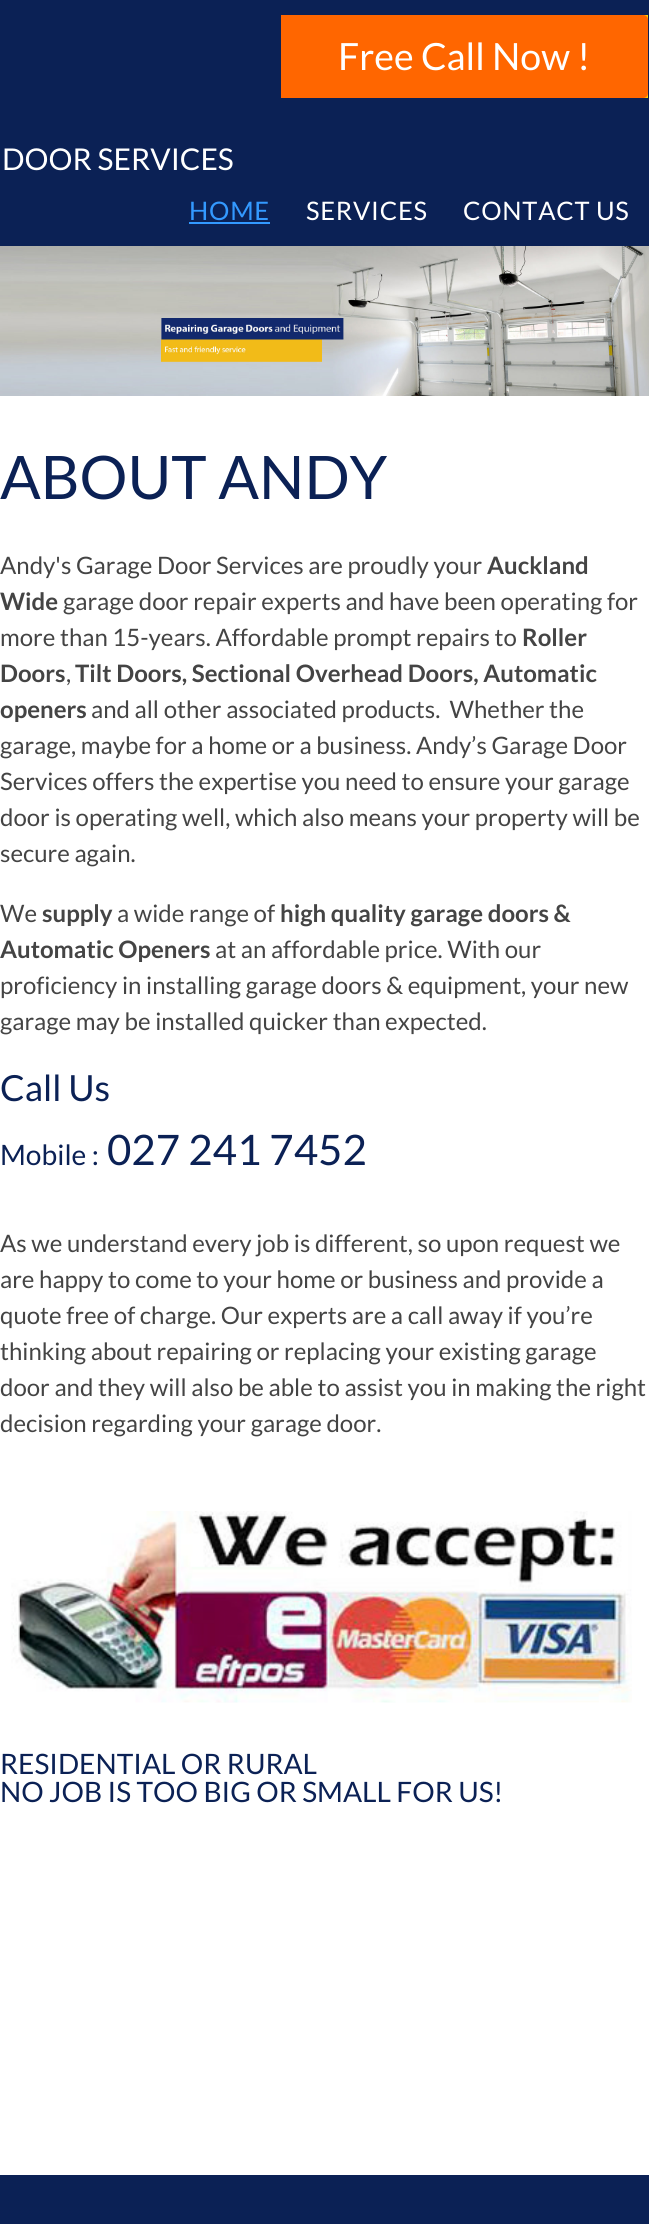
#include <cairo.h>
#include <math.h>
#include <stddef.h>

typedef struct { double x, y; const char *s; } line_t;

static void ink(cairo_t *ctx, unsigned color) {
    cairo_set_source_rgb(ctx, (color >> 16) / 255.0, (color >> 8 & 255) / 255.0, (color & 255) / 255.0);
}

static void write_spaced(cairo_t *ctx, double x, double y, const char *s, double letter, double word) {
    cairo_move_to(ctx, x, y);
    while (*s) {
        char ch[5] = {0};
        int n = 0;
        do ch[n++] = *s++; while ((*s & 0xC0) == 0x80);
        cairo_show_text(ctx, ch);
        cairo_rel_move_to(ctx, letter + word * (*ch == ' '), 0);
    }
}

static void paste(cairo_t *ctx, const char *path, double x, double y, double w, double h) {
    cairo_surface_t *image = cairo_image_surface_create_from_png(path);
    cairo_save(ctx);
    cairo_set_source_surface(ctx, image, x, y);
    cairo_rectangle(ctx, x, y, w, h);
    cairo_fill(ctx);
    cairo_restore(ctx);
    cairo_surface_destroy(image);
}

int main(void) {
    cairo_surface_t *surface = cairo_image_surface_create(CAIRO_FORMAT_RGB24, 649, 2224);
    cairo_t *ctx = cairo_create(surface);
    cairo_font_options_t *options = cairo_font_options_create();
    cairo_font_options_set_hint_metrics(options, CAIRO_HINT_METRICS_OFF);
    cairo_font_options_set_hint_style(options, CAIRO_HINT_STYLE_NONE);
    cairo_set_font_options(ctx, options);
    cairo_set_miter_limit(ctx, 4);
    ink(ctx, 0xFFFFFF);
    cairo_paint(ctx);
    ink(ctx, 0x0B2155);
    cairo_rectangle(ctx, 0, 0, 649, 246);
    cairo_fill(ctx);
    ink(ctx, 0xFFCC00);
    cairo_rectangle(ctx, 643, 15, 5, 83);
    cairo_fill(ctx);
    ink(ctx, 0xFF6600);
    cairo_new_path(ctx);
    cairo_move_to(ctx, 281, 15);
    cairo_line_to(ctx, 643, 15);
    cairo_curve_to(ctx, 646, 15, 648, 17, 648, 20);
    cairo_line_to(ctx, 648, 93);
    cairo_curve_to(ctx, 648, 96, 646, 98, 643, 98);
    cairo_line_to(ctx, 281, 98);
    cairo_close_path(ctx);
    cairo_fill(ctx);
    cairo_select_font_face(ctx, "Lato", CAIRO_FONT_SLANT_NORMAL, CAIRO_FONT_WEIGHT_NORMAL);
    cairo_set_font_size(ctx, 37.5);
    ink(ctx, 0xFFFFFF);
    cairo_move_to(ctx, 338, 70);
    cairo_show_text(ctx, "Free Call Now !");
    cairo_set_font_size(ctx, 30);
    cairo_move_to(ctx, 2, 170);
    cairo_show_text(ctx, "DOOR SERVICES");
    cairo_set_font_size(ctx, 25.5);
    ink(ctx, 0x3399FF);
    write_spaced(ctx, 189, 220, "HOME", 0.75, 0);
    cairo_rectangle(ctx, 189, 222, 81, 2);
    cairo_fill(ctx);
    ink(ctx, 0xFFFFFF);
    write_spaced(ctx, 306, 220, "SERVICES", 0.75, 0);
    write_spaced(ctx, 463, 220, "CONTACT US", 0.75, 0);
    paste(ctx, "media/1.png", 0, 246, 649, 150);
    cairo_set_font_size(ctx, 60);
    ink(ctx, 0x0B2155);
    cairo_move_to(ctx, 0, 499);
    cairo_show_text(ctx, "ABOUT ANDY");
    cairo_set_font_size(ctx, 24);
    ink(ctx, 0x444444);
    cairo_move_to(ctx, 0, 574);
    cairo_show_text(ctx, "Andy's Garage Door Services are proudly your");
    cairo_select_font_face(ctx, "Lato", CAIRO_FONT_SLANT_NORMAL, CAIRO_FONT_WEIGHT_BOLD);
    cairo_move_to(ctx, 487, 574);
    cairo_show_text(ctx, "Auckland");
    cairo_move_to(ctx, 0, 610);
    cairo_show_text(ctx, "Wide");
    cairo_select_font_face(ctx, "Lato", CAIRO_FONT_SLANT_NORMAL, CAIRO_FONT_WEIGHT_NORMAL);
    cairo_move_to(ctx, 63, 610);
    cairo_show_text(ctx, "garage door repair experts and have been operating for");
    cairo_move_to(ctx, 0, 646);
    cairo_show_text(ctx, "more than 15-years. Affordable prompt repairs to");
    cairo_select_font_face(ctx, "Lato", CAIRO_FONT_SLANT_NORMAL, CAIRO_FONT_WEIGHT_BOLD);
    cairo_move_to(ctx, 522, 646);
    cairo_show_text(ctx, "Roller");
    cairo_move_to(ctx, 0, 682);
    cairo_show_text(ctx, "Doors");
    cairo_select_font_face(ctx, "Lato", CAIRO_FONT_SLANT_NORMAL, CAIRO_FONT_WEIGHT_NORMAL);
    cairo_move_to(ctx, 66, 682);
    cairo_show_text(ctx, ",");
    cairo_select_font_face(ctx, "Lato", CAIRO_FONT_SLANT_NORMAL, CAIRO_FONT_WEIGHT_BOLD);
    cairo_move_to(ctx, 75, 682);
    cairo_show_text(ctx, "Tilt Doors, Sectional Overhead Doors, Automatic");
    cairo_move_to(ctx, 0, 718);
    cairo_show_text(ctx, "openers");
    cairo_select_font_face(ctx, "Lato", CAIRO_FONT_SLANT_NORMAL, CAIRO_FONT_WEIGHT_NORMAL);
    {
        static const line_t items[] = {
            {91, 718, "and all other associated products.  Whether the"},
            {0, 754, "garage, maybe for a home or a business. Andy’s Garage Door"},
            {0, 790, "Services offers the expertise you need to ensure your garage"},
            {0, 826, "door is operating well, which also means your property will be"},
            {0, 862, "secure again."},
            {0, 922, "We"},
        };
        for (size_t i = 0; i < sizeof items / sizeof *items; i++) {
            cairo_move_to(ctx, items[i].x, items[i].y);
            cairo_show_text(ctx, items[i].s);
        }
    }
    cairo_select_font_face(ctx, "Lato", CAIRO_FONT_SLANT_NORMAL, CAIRO_FONT_WEIGHT_BOLD);
    cairo_move_to(ctx, 42, 922);
    cairo_show_text(ctx, "supply");
    cairo_select_font_face(ctx, "Lato", CAIRO_FONT_SLANT_NORMAL, CAIRO_FONT_WEIGHT_NORMAL);
    cairo_move_to(ctx, 117, 922);
    cairo_show_text(ctx, "a wide range of");
    cairo_select_font_face(ctx, "Lato", CAIRO_FONT_SLANT_NORMAL, CAIRO_FONT_WEIGHT_BOLD);
    cairo_move_to(ctx, 280, 922);
    cairo_show_text(ctx, "high quality garage doors &");
    cairo_move_to(ctx, 0, 958);
    cairo_show_text(ctx, "Automatic Openers");
    cairo_select_font_face(ctx, "Lato", CAIRO_FONT_SLANT_NORMAL, CAIRO_FONT_WEIGHT_NORMAL);
    {
        static const line_t items[] = {
            {215, 958, "at an affordable price. With our"},
            {0, 994, "proficiency in installing garage doors & equipment, your new"},
            {0, 1030, "garage may be installed quicker than expected."},
        };
        for (size_t i = 0; i < sizeof items / sizeof *items; i++) {
            cairo_move_to(ctx, items[i].x, items[i].y);
            cairo_show_text(ctx, items[i].s);
        }
    }
    cairo_set_font_size(ctx, 36);
    ink(ctx, 0x0B2155);
    cairo_move_to(ctx, 0, 1101);
    cairo_show_text(ctx, "Call Us");
    cairo_set_font_size(ctx, 28.1);
    cairo_move_to(ctx, 0, 1165);
    cairo_show_text(ctx, "Mobile :");
    cairo_set_font_size(ctx, 42);
    cairo_move_to(ctx, 107, 1165);
    cairo_show_text(ctx, "027 241 7452");
    cairo_set_font_size(ctx, 24);
    ink(ctx, 0x444444);
    {
        static const line_t items[] = {
            {0, 1252, "As we understand every job is different, so upon request we"},
            {0, 1288, "are happy to come to your home or business and provide a"},
            {0, 1324, "quote free of charge. Our experts are a call away if you’re"},
            {0, 1360, "thinking about repairing or replacing your existing garage"},
            {0, 1396, "door and they will also be able to assist you in making the right"},
            {0, 1432, "decision regarding your garage door."},
        };
        for (size_t i = 0; i < sizeof items / sizeof *items; i++) {
            cairo_move_to(ctx, items[i].x, items[i].y);
            cairo_show_text(ctx, items[i].s);
        }
    }
    paste(ctx, "media/2.png", 11, 1511, 621, 192);
    cairo_set_font_size(ctx, 28.1);
    ink(ctx, 0x0B2155);
    cairo_move_to(ctx, 0, 1774);
    cairo_show_text(ctx, "RESIDENTIAL OR RURAL");
    cairo_move_to(ctx, 0, 1802);
    cairo_show_text(ctx, "NO JOB IS TOO BIG OR SMALL FOR US!");
    cairo_rectangle(ctx, 0, 2175, 649, 49);
    cairo_fill(ctx);
    cairo_surface_write_to_png(surface, "image.png");
    cairo_font_options_destroy(options);
    cairo_destroy(ctx);
    cairo_surface_destroy(surface);
    return 0;
}
